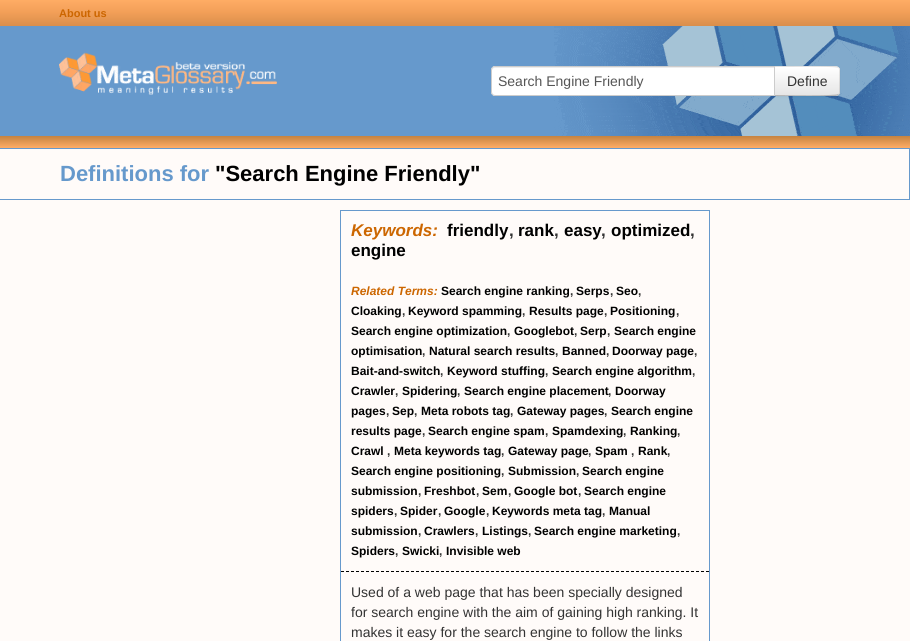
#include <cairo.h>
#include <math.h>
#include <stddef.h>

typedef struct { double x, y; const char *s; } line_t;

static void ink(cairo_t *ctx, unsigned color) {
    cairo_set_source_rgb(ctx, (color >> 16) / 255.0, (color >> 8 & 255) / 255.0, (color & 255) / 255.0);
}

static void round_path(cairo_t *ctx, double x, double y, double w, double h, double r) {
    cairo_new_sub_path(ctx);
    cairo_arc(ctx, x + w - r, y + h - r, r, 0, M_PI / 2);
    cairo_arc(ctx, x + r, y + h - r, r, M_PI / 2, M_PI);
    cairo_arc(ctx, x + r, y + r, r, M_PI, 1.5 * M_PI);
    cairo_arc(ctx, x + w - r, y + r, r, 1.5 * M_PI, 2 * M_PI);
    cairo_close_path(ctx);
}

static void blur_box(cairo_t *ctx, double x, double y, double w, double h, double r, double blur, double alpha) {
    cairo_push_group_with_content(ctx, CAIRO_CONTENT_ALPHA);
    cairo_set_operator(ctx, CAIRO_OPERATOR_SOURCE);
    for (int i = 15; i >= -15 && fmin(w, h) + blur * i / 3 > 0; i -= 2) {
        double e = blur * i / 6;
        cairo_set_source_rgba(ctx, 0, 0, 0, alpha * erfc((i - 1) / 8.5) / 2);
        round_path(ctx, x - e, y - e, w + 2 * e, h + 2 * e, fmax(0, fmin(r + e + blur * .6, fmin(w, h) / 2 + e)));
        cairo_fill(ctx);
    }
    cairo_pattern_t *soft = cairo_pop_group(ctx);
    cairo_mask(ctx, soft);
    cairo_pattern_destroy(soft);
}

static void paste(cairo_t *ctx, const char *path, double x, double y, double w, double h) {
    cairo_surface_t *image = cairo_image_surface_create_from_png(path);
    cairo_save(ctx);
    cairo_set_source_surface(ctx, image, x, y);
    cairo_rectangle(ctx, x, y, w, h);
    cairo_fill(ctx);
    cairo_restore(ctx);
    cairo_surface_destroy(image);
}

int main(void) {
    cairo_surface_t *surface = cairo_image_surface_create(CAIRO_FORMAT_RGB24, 910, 641);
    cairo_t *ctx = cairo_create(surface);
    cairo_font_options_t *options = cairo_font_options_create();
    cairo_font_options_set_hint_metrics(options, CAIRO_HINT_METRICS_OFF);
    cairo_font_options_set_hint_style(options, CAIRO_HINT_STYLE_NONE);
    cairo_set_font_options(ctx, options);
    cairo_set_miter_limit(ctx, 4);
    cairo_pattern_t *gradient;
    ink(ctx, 0xFFFBF9);
    cairo_paint(ctx);
    gradient = cairo_pattern_create_linear(445, 0, 445, 26);
    cairo_pattern_add_color_stop_rgba(gradient, 0, 1, 0.675, 0.396, 1);
    cairo_pattern_add_color_stop_rgba(gradient, 0.5, 0.945, 0.62, 0.341, 1);
    cairo_pattern_add_color_stop_rgba(gradient, 1, 0.851, 0.557, 0.298, 1);
    cairo_set_source(ctx, gradient);
    cairo_pattern_destroy(gradient);
    cairo_rectangle(ctx, 0, 0, 910, 26);
    cairo_fill(ctx);
    cairo_select_font_face(ctx, "Liberation Sans", CAIRO_FONT_SLANT_NORMAL, CAIRO_FONT_WEIGHT_BOLD);
    cairo_set_font_size(ctx, 11);
    ink(ctx, 0xCC6600);
    cairo_move_to(ctx, 59, 17);
    cairo_show_text(ctx, "About us");
    ink(ctx, 0x6699CC);
    cairo_rectangle(ctx, 0, 26, 554, 110);
    cairo_fill(ctx);
    paste(ctx, "media/1.png", 554, 26, 356, 110);
    paste(ctx, "media/2.png", 59, 52, 218, 43);
    ink(ctx, 0x000000);
    blur_box(ctx, 774, 67, 66, 30, 4, 1, 0.05);
    ink(ctx, 0xF5F5F5);
    cairo_new_path(ctx);
    cairo_move_to(ctx, 774, 66);
    cairo_line_to(ctx, 836, 66);
    cairo_curve_to(ctx, 838, 66, 840, 68, 840, 70);
    cairo_line_to(ctx, 840, 92);
    cairo_curve_to(ctx, 840, 94, 838, 96, 836, 96);
    cairo_line_to(ctx, 774, 96);
    cairo_close_path(ctx);
    cairo_fill(ctx);
    cairo_save(ctx);
    cairo_new_path(ctx);
    cairo_move_to(ctx, 774, 66);
    cairo_line_to(ctx, 836, 66);
    cairo_curve_to(ctx, 838, 66, 840, 68, 840, 70);
    cairo_line_to(ctx, 840, 92);
    cairo_curve_to(ctx, 840, 94, 838, 96, 836, 96);
    cairo_line_to(ctx, 774, 96);
    cairo_close_path(ctx);
    cairo_clip(ctx);
    gradient = cairo_pattern_create_linear(807, 67, 807, 95);
    cairo_pattern_add_color_stop_rgba(gradient, 0, 1, 1, 1, 1);
    cairo_pattern_add_color_stop_rgba(gradient, 1, 0.902, 0.902, 0.902, 1);
    cairo_set_source(ctx, gradient);
    cairo_pattern_destroy(gradient);
    cairo_rectangle(ctx, 775, 67, 65, 28);
    cairo_fill(ctx);
    cairo_restore(ctx);
    cairo_set_source_rgba(ctx, 0, 0, 0, 0.1);
    cairo_new_path(ctx);
    cairo_move_to(ctx, 774, 66);
    cairo_line_to(ctx, 775, 67);
    cairo_curve_to(ctx, 782, 67, 837, 66, 838, 68);
    cairo_line_to(ctx, 839, 67);
    cairo_line_to(ctx, 836, 66);
    cairo_close_path(ctx);
    cairo_fill(ctx);
    cairo_new_path(ctx);
    cairo_move_to(ctx, 840, 92);
    cairo_line_to(ctx, 840, 70);
    cairo_curve_to(ctx, 840, 69, 839.5, 68, 839, 67);
    cairo_line_to(ctx, 838, 68);
    cairo_curve_to(ctx, 839, 68, 839, 69, 839, 70);
    cairo_line_to(ctx, 839, 92);
    cairo_curve_to(ctx, 839, 93, 839, 94, 838, 94);
    cairo_line_to(ctx, 839, 95);
    cairo_curve_to(ctx, 839.5, 94, 840, 93, 840, 92);
    cairo_close_path(ctx);
    cairo_fill(ctx);
    ink(ctx, 0xB3B3B3);
    cairo_new_path(ctx);
    cairo_move_to(ctx, 836, 96);
    cairo_line_to(ctx, 839, 95);
    cairo_line_to(ctx, 838, 94);
    cairo_curve_to(ctx, 837, 96, 782, 95, 775, 95);
    cairo_line_to(ctx, 774, 96);
    cairo_close_path(ctx);
    cairo_fill(ctx);
    ink(ctx, 0xFFFFFF);
    cairo_new_path(ctx);
    cairo_move_to(ctx, 495, 66);
    cairo_line_to(ctx, 775, 66);
    cairo_line_to(ctx, 775, 96);
    cairo_line_to(ctx, 495, 96);
    cairo_curve_to(ctx, 493, 96, 491, 94, 491, 92);
    cairo_line_to(ctx, 491, 70);
    cairo_curve_to(ctx, 491, 68, 493, 66, 495, 66);
    cairo_close_path(ctx);
    cairo_fill(ctx);
    ink(ctx, 0xECECEC);
    cairo_new_path(ctx);
    cairo_move_to(ctx, 495, 68);
    cairo_line_to(ctx, 774, 68);
    cairo_line_to(ctx, 774, 67);
    cairo_line_to(ctx, 495, 67);
    cairo_curve_to(ctx, 493, 67, 492, 68, 492, 70);
    cairo_line_to(ctx, 492, 71);
    cairo_curve_to(ctx, 492, 69, 493, 68, 495, 68);
    cairo_close_path(ctx);
    cairo_fill(ctx);
    cairo_new_path(ctx);
    cairo_move_to(ctx, 495, 66.5);
    cairo_line_to(ctx, 774.5, 66.5);
    cairo_line_to(ctx, 774.5, 95.5);
    cairo_line_to(ctx, 495, 95.5);
    cairo_curve_to(ctx, 493, 95.5, 491.5, 94, 491.5, 92);
    cairo_line_to(ctx, 491.5, 70);
    cairo_curve_to(ctx, 491.5, 68, 493, 66.5, 495, 66.5);
    cairo_close_path(ctx);
    ink(ctx, 0xCCCCCC);
    cairo_set_line_width(ctx, 1);
    cairo_stroke(ctx);
    cairo_select_font_face(ctx, "Liberation Sans", CAIRO_FONT_SLANT_NORMAL, CAIRO_FONT_WEIGHT_NORMAL);
    cairo_set_font_size(ctx, 14);
    ink(ctx, 0x555555);
    cairo_move_to(ctx, 498, 86);
    cairo_show_text(ctx, "Search Engine Friendly");
    ink(ctx, 0x333333);
    cairo_move_to(ctx, 787, 86);
    cairo_show_text(ctx, "Define");
    gradient = cairo_pattern_create_linear(445, 136, 445, 148);
    cairo_pattern_add_color_stop_rgba(gradient, 0, 0.773, 0.514, 0.251, 1);
    cairo_pattern_add_color_stop_rgba(gradient, 1, 1, 0.678, 0.4, 1);
    cairo_set_source(ctx, gradient);
    cairo_pattern_destroy(gradient);
    cairo_rectangle(ctx, 0, 136, 910, 12);
    cairo_fill(ctx);
    cairo_rectangle(ctx, -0.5, 148.5, 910, 51);
    ink(ctx, 0x6699CC);
    cairo_stroke(ctx);
    cairo_select_font_face(ctx, "Liberation Sans", CAIRO_FONT_SLANT_NORMAL, CAIRO_FONT_WEIGHT_BOLD);
    cairo_set_font_size(ctx, 22);
    cairo_move_to(ctx, 60, 181);
    cairo_show_text(ctx, "Definitions for");
    ink(ctx, 0x000000);
    cairo_move_to(ctx, 215, 181);
    cairo_show_text(ctx, "\"Search Engine Friendly\"");
    cairo_rectangle(ctx, 340.5, 210.5, 369, 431);
    ink(ctx, 0x6699CC);
    cairo_stroke(ctx);
    cairo_select_font_face(ctx, "Liberation Sans", CAIRO_FONT_SLANT_ITALIC, CAIRO_FONT_WEIGHT_BOLD);
    cairo_set_font_size(ctx, 17);
    ink(ctx, 0xCC6600);
    cairo_move_to(ctx, 351, 236);
    cairo_show_text(ctx, "Keywords:");
    cairo_select_font_face(ctx, "Liberation Sans", CAIRO_FONT_SLANT_NORMAL, CAIRO_FONT_WEIGHT_BOLD);
    ink(ctx, 0x000000);
    cairo_move_to(ctx, 447, 236);
    cairo_show_text(ctx, "friendly");
    ink(ctx, 0x333333);
    cairo_move_to(ctx, 509, 236);
    cairo_show_text(ctx, ",");
    ink(ctx, 0x000000);
    cairo_move_to(ctx, 518, 236);
    cairo_show_text(ctx, "rank");
    ink(ctx, 0x333333);
    cairo_move_to(ctx, 554, 236);
    cairo_show_text(ctx, ",");
    ink(ctx, 0x000000);
    cairo_move_to(ctx, 564, 236);
    cairo_show_text(ctx, "easy");
    ink(ctx, 0x333333);
    cairo_move_to(ctx, 601, 236);
    cairo_show_text(ctx, ",");
    ink(ctx, 0x000000);
    cairo_move_to(ctx, 611, 236);
    cairo_show_text(ctx, "optimized");
    ink(ctx, 0x333333);
    cairo_move_to(ctx, 690, 236);
    cairo_show_text(ctx, ",");
    ink(ctx, 0x000000);
    cairo_move_to(ctx, 351, 256);
    cairo_show_text(ctx, "engine");
    cairo_select_font_face(ctx, "Liberation Sans", CAIRO_FONT_SLANT_ITALIC, CAIRO_FONT_WEIGHT_BOLD);
    cairo_set_font_size(ctx, 12);
    ink(ctx, 0xCC6600);
    cairo_move_to(ctx, 351, 295);
    cairo_show_text(ctx, "Related Terms:");
    cairo_select_font_face(ctx, "Liberation Sans", CAIRO_FONT_SLANT_NORMAL, CAIRO_FONT_WEIGHT_BOLD);
    ink(ctx, 0x000000);
    cairo_move_to(ctx, 441, 295);
    cairo_show_text(ctx, "Search engine ranking");
    ink(ctx, 0x333333);
    cairo_move_to(ctx, 570, 295);
    cairo_show_text(ctx, ",");
    ink(ctx, 0x000000);
    cairo_move_to(ctx, 576, 295);
    cairo_show_text(ctx, "Serps");
    ink(ctx, 0x333333);
    cairo_move_to(ctx, 610, 295);
    cairo_show_text(ctx, ",");
    ink(ctx, 0x000000);
    cairo_move_to(ctx, 616, 295);
    cairo_show_text(ctx, "Seo");
    ink(ctx, 0x333333);
    cairo_move_to(ctx, 638, 295);
    cairo_show_text(ctx, ",");
    ink(ctx, 0x000000);
    cairo_move_to(ctx, 351, 315);
    cairo_show_text(ctx, "Cloaking");
    ink(ctx, 0x333333);
    cairo_move_to(ctx, 402, 315);
    cairo_show_text(ctx, ",");
    ink(ctx, 0x000000);
    cairo_move_to(ctx, 408, 315);
    cairo_show_text(ctx, "Keyword spamming");
    ink(ctx, 0x333333);
    cairo_move_to(ctx, 522, 315);
    cairo_show_text(ctx, ",");
    ink(ctx, 0x000000);
    cairo_move_to(ctx, 529, 315);
    cairo_show_text(ctx, "Results page");
    ink(ctx, 0x333333);
    cairo_move_to(ctx, 604, 315);
    cairo_show_text(ctx, ",");
    ink(ctx, 0x000000);
    cairo_move_to(ctx, 610, 315);
    cairo_show_text(ctx, "Positioning");
    ink(ctx, 0x333333);
    cairo_move_to(ctx, 676, 315);
    cairo_show_text(ctx, ",");
    ink(ctx, 0x000000);
    cairo_move_to(ctx, 351, 335);
    cairo_show_text(ctx, "Search engine optimization");
    ink(ctx, 0x333333);
    cairo_move_to(ctx, 507, 335);
    cairo_show_text(ctx, ",");
    ink(ctx, 0x000000);
    cairo_move_to(ctx, 514, 335);
    cairo_show_text(ctx, "Googlebot");
    ink(ctx, 0x333333);
    cairo_move_to(ctx, 574, 335);
    cairo_show_text(ctx, ",");
    ink(ctx, 0x000000);
    cairo_move_to(ctx, 580, 335);
    cairo_show_text(ctx, "Serp");
    ink(ctx, 0x333333);
    cairo_move_to(ctx, 607, 335);
    cairo_show_text(ctx, ",");
    ink(ctx, 0x000000);
    cairo_move_to(ctx, 614, 335);
    cairo_show_text(ctx, "Search engine");
    cairo_move_to(ctx, 351, 355);
    cairo_show_text(ctx, "optimisation");
    ink(ctx, 0x333333);
    cairo_move_to(ctx, 422, 355);
    cairo_show_text(ctx, ",");
    ink(ctx, 0x000000);
    cairo_move_to(ctx, 429, 355);
    cairo_show_text(ctx, "Natural search results");
    ink(ctx, 0x333333);
    cairo_move_to(ctx, 555, 355);
    cairo_show_text(ctx, ",");
    ink(ctx, 0x000000);
    cairo_move_to(ctx, 562, 355);
    cairo_show_text(ctx, "Banned");
    ink(ctx, 0x333333);
    cairo_move_to(ctx, 606, 355);
    cairo_show_text(ctx, ",");
    ink(ctx, 0x000000);
    cairo_move_to(ctx, 612, 355);
    cairo_show_text(ctx, "Doorway page");
    ink(ctx, 0x333333);
    cairo_move_to(ctx, 694, 355);
    cairo_show_text(ctx, ",");
    ink(ctx, 0x000000);
    cairo_move_to(ctx, 351, 375);
    cairo_show_text(ctx, "Bait-and-switch");
    ink(ctx, 0x333333);
    cairo_move_to(ctx, 440, 375);
    cairo_show_text(ctx, ",");
    ink(ctx, 0x000000);
    cairo_move_to(ctx, 447, 375);
    cairo_show_text(ctx, "Keyword stuffing");
    ink(ctx, 0x333333);
    cairo_move_to(ctx, 545, 375);
    cairo_show_text(ctx, ",");
    ink(ctx, 0x000000);
    cairo_move_to(ctx, 552, 375);
    cairo_show_text(ctx, "Search engine algorithm");
    ink(ctx, 0x333333);
    cairo_move_to(ctx, 692, 375);
    cairo_show_text(ctx, ",");
    ink(ctx, 0x000000);
    cairo_move_to(ctx, 351, 395);
    cairo_show_text(ctx, "Crawler");
    ink(ctx, 0x333333);
    cairo_move_to(ctx, 395, 395);
    cairo_show_text(ctx, ",");
    ink(ctx, 0x000000);
    cairo_move_to(ctx, 402, 395);
    cairo_show_text(ctx, "Spidering");
    ink(ctx, 0x333333);
    cairo_move_to(ctx, 457, 395);
    cairo_show_text(ctx, ",");
    ink(ctx, 0x000000);
    cairo_move_to(ctx, 464, 395);
    cairo_show_text(ctx, "Search engine placement");
    ink(ctx, 0x333333);
    cairo_move_to(ctx, 608, 395);
    cairo_show_text(ctx, ",");
    ink(ctx, 0x000000);
    cairo_move_to(ctx, 615, 395);
    cairo_show_text(ctx, "Doorway");
    cairo_move_to(ctx, 351, 415);
    cairo_show_text(ctx, "pages");
    ink(ctx, 0x333333);
    cairo_move_to(ctx, 386, 415);
    cairo_show_text(ctx, ",");
    ink(ctx, 0x000000);
    cairo_move_to(ctx, 392, 415);
    cairo_show_text(ctx, "Sep");
    ink(ctx, 0x333333);
    cairo_move_to(ctx, 414, 415);
    cairo_show_text(ctx, ",");
    ink(ctx, 0x000000);
    cairo_move_to(ctx, 421, 415);
    cairo_show_text(ctx, "Meta robots tag");
    ink(ctx, 0x333333);
    cairo_move_to(ctx, 510, 415);
    cairo_show_text(ctx, ",");
    ink(ctx, 0x000000);
    cairo_move_to(ctx, 517, 415);
    cairo_show_text(ctx, "Gateway pages");
    ink(ctx, 0x333333);
    cairo_move_to(ctx, 604, 415);
    cairo_show_text(ctx, ",");
    ink(ctx, 0x000000);
    cairo_move_to(ctx, 611, 415);
    cairo_show_text(ctx, "Search engine");
    cairo_move_to(ctx, 351, 435);
    cairo_show_text(ctx, "results page");
    ink(ctx, 0x333333);
    cairo_move_to(ctx, 422, 435);
    cairo_show_text(ctx, ",");
    ink(ctx, 0x000000);
    cairo_move_to(ctx, 428, 435);
    cairo_show_text(ctx, "Search engine spam");
    ink(ctx, 0x333333);
    cairo_move_to(ctx, 545, 435);
    cairo_show_text(ctx, ",");
    ink(ctx, 0x000000);
    cairo_move_to(ctx, 552, 435);
    cairo_show_text(ctx, "Spamdexing");
    ink(ctx, 0x333333);
    cairo_move_to(ctx, 623, 435);
    cairo_show_text(ctx, ",");
    ink(ctx, 0x000000);
    cairo_move_to(ctx, 630, 435);
    cairo_show_text(ctx, "Ranking");
    ink(ctx, 0x333333);
    cairo_move_to(ctx, 677, 435);
    cairo_show_text(ctx, ",");
    ink(ctx, 0x000000);
    cairo_move_to(ctx, 351, 455);
    cairo_show_text(ctx, "Crawl");
    ink(ctx, 0x333333);
    cairo_move_to(ctx, 387, 455);
    cairo_show_text(ctx, ",");
    ink(ctx, 0x000000);
    cairo_move_to(ctx, 394, 455);
    cairo_show_text(ctx, "Meta keywords tag");
    ink(ctx, 0x333333);
    cairo_move_to(ctx, 501, 455);
    cairo_show_text(ctx, ",");
    ink(ctx, 0x000000);
    cairo_move_to(ctx, 508, 455);
    cairo_show_text(ctx, "Gateway page");
    ink(ctx, 0x333333);
    cairo_move_to(ctx, 588, 455);
    cairo_show_text(ctx, ",");
    ink(ctx, 0x000000);
    cairo_move_to(ctx, 595, 455);
    cairo_show_text(ctx, "Spam");
    ink(ctx, 0x333333);
    cairo_move_to(ctx, 631, 455);
    cairo_show_text(ctx, ",");
    ink(ctx, 0x000000);
    cairo_move_to(ctx, 638, 455);
    cairo_show_text(ctx, "Rank");
    ink(ctx, 0x333333);
    cairo_move_to(ctx, 667, 455);
    cairo_show_text(ctx, ",");
    ink(ctx, 0x000000);
    cairo_move_to(ctx, 351, 475);
    cairo_show_text(ctx, "Search engine positioning");
    ink(ctx, 0x333333);
    cairo_move_to(ctx, 501, 475);
    cairo_show_text(ctx, ",");
    ink(ctx, 0x000000);
    cairo_move_to(ctx, 508, 475);
    cairo_show_text(ctx, "Submission");
    ink(ctx, 0x333333);
    cairo_move_to(ctx, 576, 475);
    cairo_show_text(ctx, ",");
    ink(ctx, 0x000000);
    cairo_move_to(ctx, 582, 475);
    cairo_show_text(ctx, "Search engine");
    cairo_move_to(ctx, 351, 495);
    cairo_show_text(ctx, "submission");
    ink(ctx, 0x333333);
    cairo_move_to(ctx, 418, 495);
    cairo_show_text(ctx, ",");
    ink(ctx, 0x000000);
    cairo_move_to(ctx, 424, 495);
    cairo_show_text(ctx, "Freshbot");
    ink(ctx, 0x333333);
    cairo_move_to(ctx, 476, 495);
    cairo_show_text(ctx, ",");
    ink(ctx, 0x000000);
    cairo_move_to(ctx, 482, 495);
    cairo_show_text(ctx, "Sem");
    ink(ctx, 0x333333);
    cairo_move_to(ctx, 508, 495);
    cairo_show_text(ctx, ",");
    ink(ctx, 0x000000);
    cairo_move_to(ctx, 514, 495);
    cairo_show_text(ctx, "Google bot");
    ink(ctx, 0x333333);
    cairo_move_to(ctx, 578, 495);
    cairo_show_text(ctx, ",");
    ink(ctx, 0x000000);
    cairo_move_to(ctx, 584, 495);
    cairo_show_text(ctx, "Search engine");
    cairo_move_to(ctx, 351, 515);
    cairo_show_text(ctx, "spiders");
    ink(ctx, 0x333333);
    cairo_move_to(ctx, 394, 515);
    cairo_show_text(ctx, ",");
    ink(ctx, 0x000000);
    cairo_move_to(ctx, 400, 515);
    cairo_show_text(ctx, "Spider");
    ink(ctx, 0x333333);
    cairo_move_to(ctx, 438, 515);
    cairo_show_text(ctx, ",");
    ink(ctx, 0x000000);
    cairo_move_to(ctx, 444, 515);
    cairo_show_text(ctx, "Google");
    ink(ctx, 0x333333);
    cairo_move_to(ctx, 486, 515);
    cairo_show_text(ctx, ",");
    ink(ctx, 0x000000);
    cairo_move_to(ctx, 492, 515);
    cairo_show_text(ctx, "Keywords meta tag");
    ink(ctx, 0x333333);
    cairo_move_to(ctx, 602, 515);
    cairo_show_text(ctx, ",");
    ink(ctx, 0x000000);
    cairo_move_to(ctx, 609, 515);
    cairo_show_text(ctx, "Manual");
    cairo_move_to(ctx, 351, 535);
    cairo_show_text(ctx, "submission");
    ink(ctx, 0x333333);
    cairo_move_to(ctx, 418, 535);
    cairo_show_text(ctx, ",");
    ink(ctx, 0x000000);
    cairo_move_to(ctx, 424, 535);
    cairo_show_text(ctx, "Crawlers");
    ink(ctx, 0x333333);
    cairo_move_to(ctx, 475, 535);
    cairo_show_text(ctx, ",");
    ink(ctx, 0x000000);
    cairo_move_to(ctx, 482, 535);
    cairo_show_text(ctx, "Listings");
    ink(ctx, 0x333333);
    cairo_move_to(ctx, 528, 535);
    cairo_show_text(ctx, ",");
    ink(ctx, 0x000000);
    cairo_move_to(ctx, 534, 535);
    cairo_show_text(ctx, "Search engine marketing");
    ink(ctx, 0x333333);
    cairo_move_to(ctx, 677, 535);
    cairo_show_text(ctx, ",");
    ink(ctx, 0x000000);
    cairo_move_to(ctx, 351, 555);
    cairo_show_text(ctx, "Spiders");
    ink(ctx, 0x333333);
    cairo_move_to(ctx, 395, 555);
    cairo_show_text(ctx, ",");
    ink(ctx, 0x000000);
    cairo_move_to(ctx, 402, 555);
    cairo_show_text(ctx, "Swicki");
    ink(ctx, 0x333333);
    cairo_move_to(ctx, 439, 555);
    cairo_show_text(ctx, ",");
    ink(ctx, 0x000000);
    cairo_move_to(ctx, 446, 555);
    cairo_show_text(ctx, "Invisible web");
    cairo_new_path(ctx);
    cairo_move_to(ctx, 341, 571.5);
    cairo_line_to(ctx, 709, 571.5);
    cairo_set_dash(ctx, (double[]){3, 2}, 2, 0);
    cairo_stroke(ctx);
    cairo_select_font_face(ctx, "Liberation Sans", CAIRO_FONT_SLANT_NORMAL, CAIRO_FONT_WEIGHT_NORMAL);
    cairo_set_font_size(ctx, 14);
    ink(ctx, 0x333333);
    {
        static const line_t items[] = {
            {351, 597, "Used of a web page that has been specially designed"},
            {351, 617, "for search engine with the aim of gaining high ranking. It"},
            {351, 637, "makes it easy for the search engine to follow the links"},
        };
        for (size_t i = 0; i < sizeof items / sizeof *items; i++) {
            cairo_move_to(ctx, items[i].x, items[i].y);
            cairo_show_text(ctx, items[i].s);
        }
    }
    cairo_surface_write_to_png(surface, "image.png");
    cairo_font_options_destroy(options);
    cairo_destroy(ctx);
    cairo_surface_destroy(surface);
    return 0;
}
